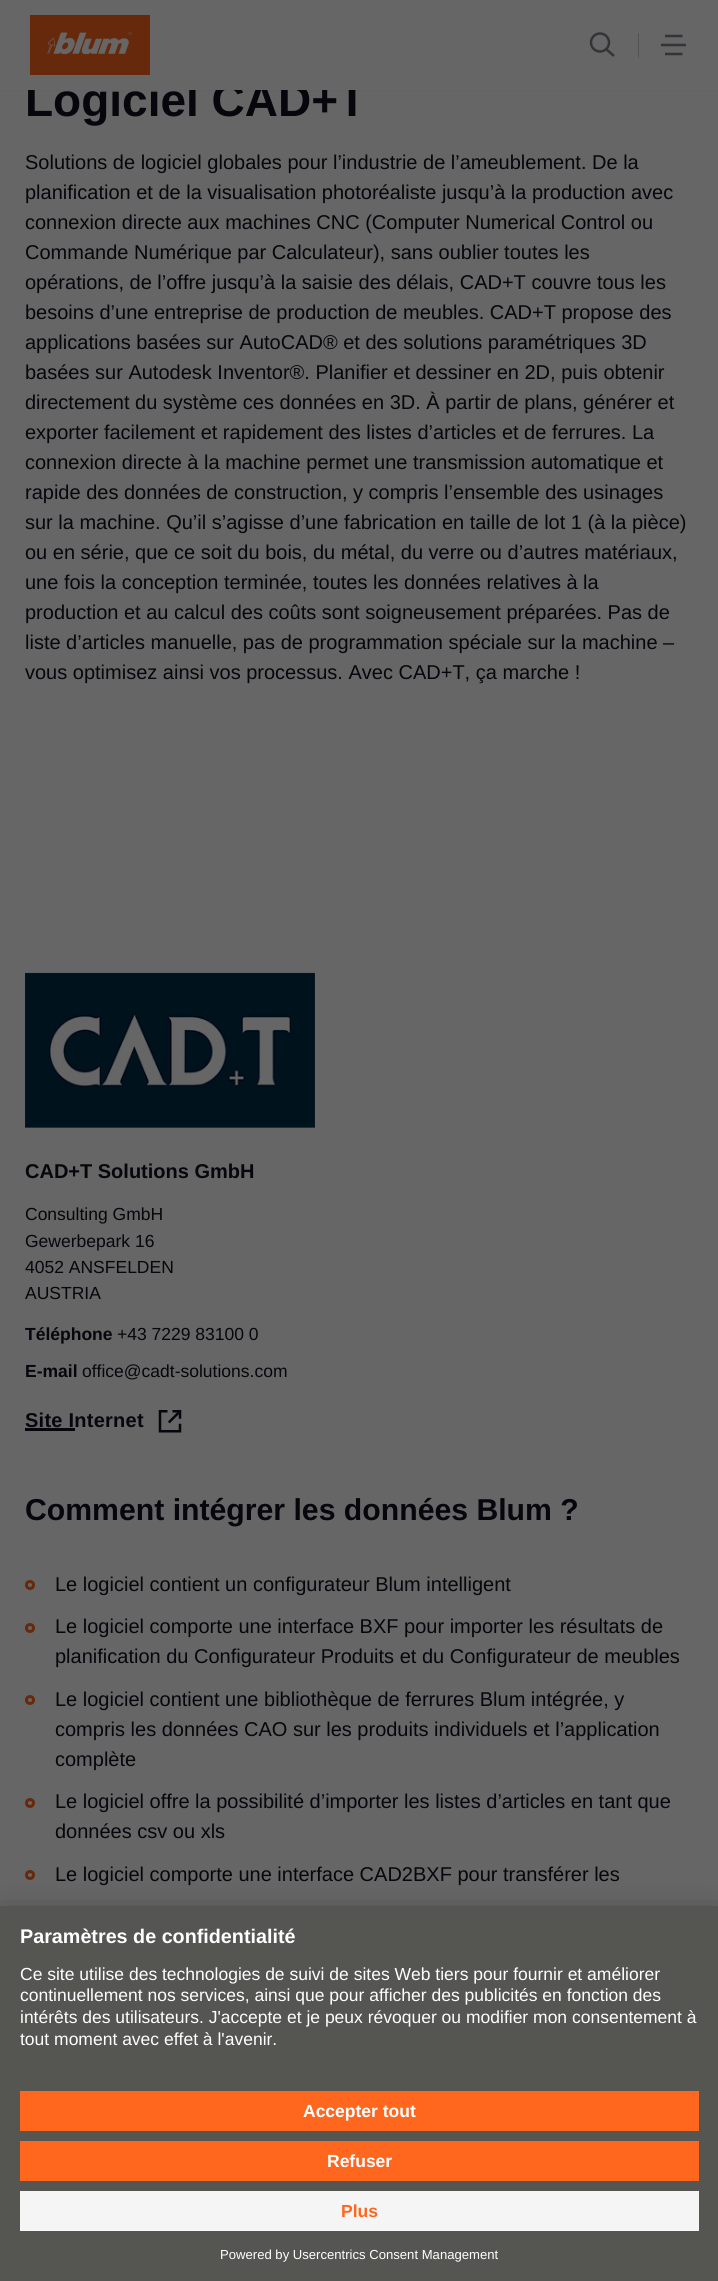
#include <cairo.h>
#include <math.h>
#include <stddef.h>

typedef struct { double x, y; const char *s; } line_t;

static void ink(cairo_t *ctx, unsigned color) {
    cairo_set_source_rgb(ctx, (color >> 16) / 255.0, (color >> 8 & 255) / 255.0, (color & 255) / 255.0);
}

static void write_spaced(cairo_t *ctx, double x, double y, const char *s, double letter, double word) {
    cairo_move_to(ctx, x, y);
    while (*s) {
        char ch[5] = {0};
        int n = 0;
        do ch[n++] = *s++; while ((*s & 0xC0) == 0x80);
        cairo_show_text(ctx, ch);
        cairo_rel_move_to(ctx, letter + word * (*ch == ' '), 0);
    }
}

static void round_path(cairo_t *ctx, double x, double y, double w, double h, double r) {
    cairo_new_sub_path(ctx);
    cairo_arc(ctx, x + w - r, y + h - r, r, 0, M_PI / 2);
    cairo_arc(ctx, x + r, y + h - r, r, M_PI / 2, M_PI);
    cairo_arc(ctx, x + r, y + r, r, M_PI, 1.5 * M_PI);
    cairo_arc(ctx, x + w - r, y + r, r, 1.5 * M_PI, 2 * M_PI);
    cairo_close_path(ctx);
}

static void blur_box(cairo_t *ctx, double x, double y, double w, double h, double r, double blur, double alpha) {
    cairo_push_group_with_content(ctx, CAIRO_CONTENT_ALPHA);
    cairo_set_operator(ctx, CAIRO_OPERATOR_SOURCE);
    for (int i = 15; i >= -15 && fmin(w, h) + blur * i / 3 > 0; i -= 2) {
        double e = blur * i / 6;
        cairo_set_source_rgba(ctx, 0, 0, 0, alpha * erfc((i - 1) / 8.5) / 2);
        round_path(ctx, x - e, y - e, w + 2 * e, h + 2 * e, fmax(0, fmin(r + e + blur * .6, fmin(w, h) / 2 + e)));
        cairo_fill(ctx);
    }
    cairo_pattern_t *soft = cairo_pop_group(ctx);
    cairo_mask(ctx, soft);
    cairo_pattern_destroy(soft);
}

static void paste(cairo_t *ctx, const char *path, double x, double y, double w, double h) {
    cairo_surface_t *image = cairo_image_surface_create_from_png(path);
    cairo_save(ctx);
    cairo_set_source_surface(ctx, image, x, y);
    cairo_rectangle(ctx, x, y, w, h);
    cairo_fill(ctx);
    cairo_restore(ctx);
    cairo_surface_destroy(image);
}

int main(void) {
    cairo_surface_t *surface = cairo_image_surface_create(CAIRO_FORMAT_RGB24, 718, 2281);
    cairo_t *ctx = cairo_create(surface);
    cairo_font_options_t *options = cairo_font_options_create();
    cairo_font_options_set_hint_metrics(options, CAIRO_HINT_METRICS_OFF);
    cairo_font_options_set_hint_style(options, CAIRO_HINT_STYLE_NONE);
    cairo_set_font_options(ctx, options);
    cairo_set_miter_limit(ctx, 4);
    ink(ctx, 0x666666);
    cairo_paint(ctx);
    ink(ctx, 0x616161);
    blur_box(ctx, 0, 0, 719, 90, 0, 1, 1);
    cairo_select_font_face(ctx, "Liberation Sans", CAIRO_FONT_SLANT_NORMAL, CAIRO_FONT_WEIGHT_BOLD);
    cairo_set_font_size(ctx, 46);
    ink(ctx, 0x06060C);
    cairo_move_to(ctx, 25, 116);
    cairo_show_text(ctx, "Logiciel CAD+T");
    ink(ctx, 0x666666);
    cairo_rectangle(ctx, 0, 0, 718, 90);
    cairo_fill(ctx);
    paste(ctx, "media/1.png", 30, 15, 120, 60);
    cairo_arc(ctx, 600, 42.5, 9, 0, 2 * M_PI);
    ink(ctx, 0x323437);
    cairo_set_line_width(ctx, 2.5);
    cairo_stroke(ctx);
    cairo_new_path(ctx);
    cairo_move_to(ctx, 606, 49);
    cairo_line_to(ctx, 614, 56);
    cairo_stroke(ctx);
    ink(ctx, 0x535354);
    cairo_rectangle(ctx, 638, 33, 1, 25);
    cairo_fill(ctx);
    cairo_new_path(ctx);
    cairo_move_to(ctx, 682.5, 36);
    cairo_line_to(ctx, 665, 36);
    cairo_close_path(ctx);
    cairo_move_to(ctx, 682.5, 54);
    cairo_line_to(ctx, 665, 54);
    cairo_close_path(ctx);
    cairo_move_to(ctx, 686, 45);
    cairo_line_to(ctx, 661, 45);
    cairo_close_path(ctx);
    ink(ctx, 0x323437);
    cairo_stroke(ctx);
    cairo_select_font_face(ctx, "Liberation Sans", CAIRO_FONT_SLANT_NORMAL, CAIRO_FONT_WEIGHT_NORMAL);
    cairo_set_font_size(ctx, 20);
    ink(ctx, 0x06060C);
    {
        static const line_t items[] = {
            {25, 169, "Solutions de logiciel globales pour l’industrie de l’ameublement. De la"},
            {25, 199, "planification et de la visualisation photoréaliste jusqu’à la production avec"},
            {25, 229, "connexion directe aux machines CNC (Computer Numerical Control ou"},
            {25, 259, "Commande Numérique par Calculateur), sans oublier toutes les"},
            {25, 289, "opérations, de l’offre jusqu’à la saisie des délais, CAD+T couvre tous les"},
            {25, 319, "besoins d’une entreprise de production de meubles. CAD+T propose des"},
            {25, 349, "applications basées sur AutoCAD® et des solutions paramétriques 3D"},
            {25, 379, "basées sur Autodesk Inventor®. Planifier et dessiner en 2D, puis obtenir"},
            {25, 409, "directement du système ces données en 3D. À partir de plans, générer et"},
            {25, 439, "exporter facilement et rapidement des listes d’articles et de ferrures. La"},
            {25, 469, "connexion directe à la machine permet une transmission automatique et"},
            {25, 499, "rapide des données de construction, y compris l’ensemble des usinages"},
            {25, 529, "sur la machine. Qu’il s’agisse d’une fabrication en taille de lot 1 (à la pièce)"},
            {25, 559, "ou en série, que ce soit du bois, du métal, du verre ou d’autres matériaux,"},
            {25, 589, "une fois la conception terminée, toutes les données relatives à la"},
            {25, 619, "production et au calcul des coûts sont soigneusement préparées. Pas de"},
            {25, 649, "liste d’articles manuelle, pas de programmation spéciale sur la machine –"},
            {25, 679, "vous optimisez ainsi vos processus. Avec CAD+T, ça marche !"},
        };
        for (size_t i = 0; i < sizeof items / sizeof *items; i++) {
            cairo_move_to(ctx, items[i].x, items[i].y);
            cairo_show_text(ctx, items[i].s);
        }
    }
    paste(ctx, "media/2.png", 25, 963, 290, 173);
    cairo_select_font_face(ctx, "Liberation Sans", CAIRO_FONT_SLANT_NORMAL, CAIRO_FONT_WEIGHT_BOLD);
    cairo_move_to(ctx, 25, 1178);
    cairo_show_text(ctx, "CAD+T Solutions GmbH");
    cairo_select_font_face(ctx, "Liberation Sans", CAIRO_FONT_SLANT_NORMAL, CAIRO_FONT_WEIGHT_NORMAL);
    cairo_set_font_size(ctx, 17.5);
    {
        static const line_t items[] = {
            {25, 1220, "Consulting GmbH"},
            {25, 1247, "Gewerbepark 16"},
            {25, 1273, "4052 ANSFELDEN"},
            {25, 1299, "AUSTRIA"},
        };
        for (size_t i = 0; i < sizeof items / sizeof *items; i++) {
            cairo_move_to(ctx, items[i].x, items[i].y);
            cairo_show_text(ctx, items[i].s);
        }
    }
    cairo_select_font_face(ctx, "Liberation Sans", CAIRO_FONT_SLANT_NORMAL, CAIRO_FONT_WEIGHT_BOLD);
    cairo_move_to(ctx, 25, 1340);
    cairo_show_text(ctx, "Téléphone");
    cairo_select_font_face(ctx, "Liberation Sans", CAIRO_FONT_SLANT_NORMAL, CAIRO_FONT_WEIGHT_NORMAL);
    cairo_move_to(ctx, 117, 1340);
    cairo_show_text(ctx, "+43 7229 83100 0");
    cairo_select_font_face(ctx, "Liberation Sans", CAIRO_FONT_SLANT_NORMAL, CAIRO_FONT_WEIGHT_BOLD);
    cairo_move_to(ctx, 25, 1377);
    cairo_show_text(ctx, "E-mail");
    cairo_select_font_face(ctx, "Liberation Sans", CAIRO_FONT_SLANT_NORMAL, CAIRO_FONT_WEIGHT_NORMAL);
    cairo_move_to(ctx, 82, 1377);
    cairo_show_text(ctx, "office@cadt-solutions.com");
    cairo_select_font_face(ctx, "Liberation Sans", CAIRO_FONT_SLANT_NORMAL, CAIRO_FONT_WEIGHT_BOLD);
    cairo_set_font_size(ctx, 20);
    write_spaced(ctx, 25, 1427, "Site Internet", 0.25, 0);
    cairo_rectangle(ctx, 25, 1428, 50, 3);
    cairo_fill(ctx);
    paste(ctx, "media/3.png", 158, 1410, 24, 23);
    cairo_set_font_size(ctx, 30.2);
    cairo_move_to(ctx, 25, 1520);
    cairo_show_text(ctx, "Comment intégrer les données Blum ?");
    cairo_new_path(ctx);
    cairo_arc(ctx, 30, 1585, 3.5, 0, 2 * M_PI);
    ink(ctx, 0x66290C);
    cairo_set_line_width(ctx, 3);
    cairo_stroke(ctx);
    cairo_select_font_face(ctx, "Liberation Sans", CAIRO_FONT_SLANT_NORMAL, CAIRO_FONT_WEIGHT_NORMAL);
    cairo_set_font_size(ctx, 20);
    ink(ctx, 0x06060C);
    cairo_move_to(ctx, 55, 1591);
    cairo_show_text(ctx, "Le logiciel contient un configurateur Blum intelligent");
    cairo_new_path(ctx);
    cairo_arc(ctx, 30, 1628, 3.5, 0, 2 * M_PI);
    ink(ctx, 0x66290C);
    cairo_stroke(ctx);
    ink(ctx, 0x06060C);
    cairo_move_to(ctx, 55, 1633);
    cairo_show_text(ctx, "Le logiciel comporte une interface BXF pour importer les résultats de");
    cairo_move_to(ctx, 55, 1663);
    cairo_show_text(ctx, "planification du Configurateur Produits et du Configurateur de meubles");
    cairo_new_path(ctx);
    cairo_arc(ctx, 30, 1700, 3.5, 0, 2 * M_PI);
    ink(ctx, 0x66290C);
    cairo_stroke(ctx);
    ink(ctx, 0x06060C);
    {
        static const line_t items[] = {
            {55, 1706, "Le logiciel contient une bibliothèque de ferrures Blum intégrée, y"},
            {55, 1736, "compris les données CAO sur les produits individuels et l’application"},
            {55, 1766, "complète"},
        };
        for (size_t i = 0; i < sizeof items / sizeof *items; i++) {
            cairo_move_to(ctx, items[i].x, items[i].y);
            cairo_show_text(ctx, items[i].s);
        }
    }
    cairo_new_path(ctx);
    cairo_arc(ctx, 30, 1803, 3.5, 0, 2 * M_PI);
    ink(ctx, 0x66290C);
    cairo_stroke(ctx);
    ink(ctx, 0x06060C);
    cairo_move_to(ctx, 55, 1808);
    cairo_show_text(ctx, "Le logiciel offre la possibilité d’importer les listes d’articles en tant que");
    cairo_move_to(ctx, 55, 1838);
    cairo_show_text(ctx, "données csv ou xls");
    cairo_new_path(ctx);
    cairo_arc(ctx, 30, 1875, 3.5, 0, 2 * M_PI);
    ink(ctx, 0x66290C);
    cairo_stroke(ctx);
    ink(ctx, 0x06060C);
    cairo_move_to(ctx, 55, 1881);
    cairo_show_text(ctx, "Le logiciel comporte une interface CAD2BXF pour transférer les");
    ink(ctx, 0x000000);
    blur_box(ctx, 0, 1931, 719, 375, 0, 17.5, 0.3);
    blur_box(ctx, 0, 1913, 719, 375, 0, 16, 0.22);
    ink(ctx, 0x555552);
    cairo_rectangle(ctx, 0, 1906, 718, 375);
    cairo_fill(ctx);
    cairo_select_font_face(ctx, "Liberation Sans", CAIRO_FONT_SLANT_NORMAL, CAIRO_FONT_WEIGHT_BOLD);
    cairo_set_font_size(ctx, 19.75);
    ink(ctx, 0xFFFFFF);
    cairo_move_to(ctx, 20, 1943);
    cairo_show_text(ctx, "Paramètres de confidentialité");
    cairo_select_font_face(ctx, "Liberation Sans", CAIRO_FONT_SLANT_NORMAL, CAIRO_FONT_WEIGHT_NORMAL);
    cairo_set_font_size(ctx, 17.5);
    {
        static const line_t items[] = {
            {20, 1980, "Ce site utilise des technologies de suivi de sites Web tiers pour fournir et améliorer"},
            {20, 2001, "continuellement nos services, ainsi que pour afficher des publicités en fonction des"},
            {20, 2023, "intérêts des utilisateurs. J'accepte et je peux révoquer ou modifier mon consentement à"},
            {20, 2045, "tout moment avec effet à l'avenir."},
        };
        for (size_t i = 0; i < sizeof items / sizeof *items; i++) {
            cairo_move_to(ctx, items[i].x, items[i].y);
            cairo_show_text(ctx, items[i].s);
        }
    }
    ink(ctx, 0xFF671F);
    cairo_rectangle(ctx, 20, 2091, 679, 40);
    cairo_fill(ctx);
    cairo_select_font_face(ctx, "Liberation Sans", CAIRO_FONT_SLANT_NORMAL, CAIRO_FONT_WEIGHT_BOLD);
    ink(ctx, 0xFFFFFF);
    cairo_move_to(ctx, 303, 2117);
    cairo_show_text(ctx, "Accepter tout");
    ink(ctx, 0xFF671F);
    cairo_rectangle(ctx, 20, 2141, 679, 40);
    cairo_fill(ctx);
    ink(ctx, 0xFFFFFF);
    cairo_move_to(ctx, 327, 2167);
    cairo_show_text(ctx, "Refuser");
    ink(ctx, 0xF5F5F5);
    cairo_rectangle(ctx, 20, 2191, 679, 40);
    cairo_fill(ctx);
    ink(ctx, 0xFF671F);
    cairo_move_to(ctx, 341, 2217);
    cairo_show_text(ctx, "Plus");
    cairo_select_font_face(ctx, "Liberation Sans", CAIRO_FONT_SLANT_NORMAL, CAIRO_FONT_WEIGHT_NORMAL);
    cairo_set_font_size(ctx, 13.1);
    ink(ctx, 0xFFFFFF);
    cairo_move_to(ctx, 220, 2259);
    cairo_show_text(ctx, "Powered by Usercentrics Consent Management");
    cairo_surface_write_to_png(surface, "image.png");
    cairo_font_options_destroy(options);
    cairo_destroy(ctx);
    cairo_surface_destroy(surface);
    return 0;
}
